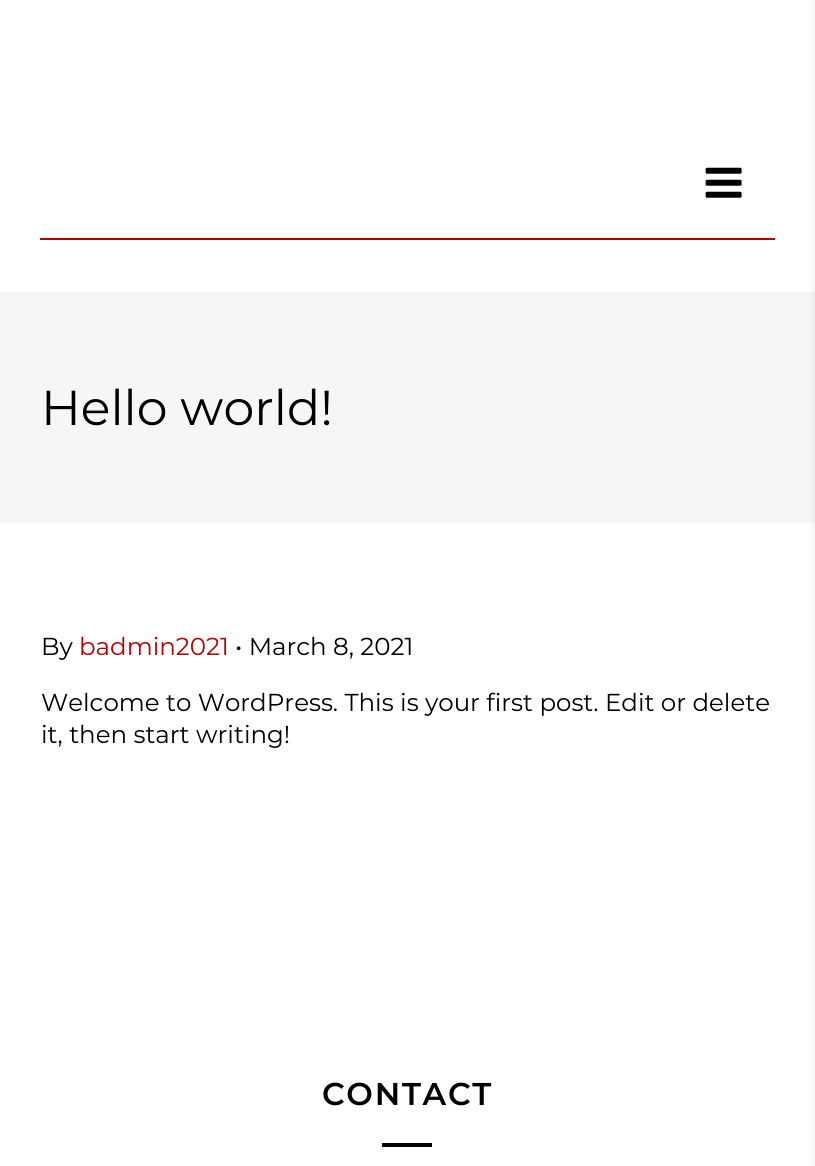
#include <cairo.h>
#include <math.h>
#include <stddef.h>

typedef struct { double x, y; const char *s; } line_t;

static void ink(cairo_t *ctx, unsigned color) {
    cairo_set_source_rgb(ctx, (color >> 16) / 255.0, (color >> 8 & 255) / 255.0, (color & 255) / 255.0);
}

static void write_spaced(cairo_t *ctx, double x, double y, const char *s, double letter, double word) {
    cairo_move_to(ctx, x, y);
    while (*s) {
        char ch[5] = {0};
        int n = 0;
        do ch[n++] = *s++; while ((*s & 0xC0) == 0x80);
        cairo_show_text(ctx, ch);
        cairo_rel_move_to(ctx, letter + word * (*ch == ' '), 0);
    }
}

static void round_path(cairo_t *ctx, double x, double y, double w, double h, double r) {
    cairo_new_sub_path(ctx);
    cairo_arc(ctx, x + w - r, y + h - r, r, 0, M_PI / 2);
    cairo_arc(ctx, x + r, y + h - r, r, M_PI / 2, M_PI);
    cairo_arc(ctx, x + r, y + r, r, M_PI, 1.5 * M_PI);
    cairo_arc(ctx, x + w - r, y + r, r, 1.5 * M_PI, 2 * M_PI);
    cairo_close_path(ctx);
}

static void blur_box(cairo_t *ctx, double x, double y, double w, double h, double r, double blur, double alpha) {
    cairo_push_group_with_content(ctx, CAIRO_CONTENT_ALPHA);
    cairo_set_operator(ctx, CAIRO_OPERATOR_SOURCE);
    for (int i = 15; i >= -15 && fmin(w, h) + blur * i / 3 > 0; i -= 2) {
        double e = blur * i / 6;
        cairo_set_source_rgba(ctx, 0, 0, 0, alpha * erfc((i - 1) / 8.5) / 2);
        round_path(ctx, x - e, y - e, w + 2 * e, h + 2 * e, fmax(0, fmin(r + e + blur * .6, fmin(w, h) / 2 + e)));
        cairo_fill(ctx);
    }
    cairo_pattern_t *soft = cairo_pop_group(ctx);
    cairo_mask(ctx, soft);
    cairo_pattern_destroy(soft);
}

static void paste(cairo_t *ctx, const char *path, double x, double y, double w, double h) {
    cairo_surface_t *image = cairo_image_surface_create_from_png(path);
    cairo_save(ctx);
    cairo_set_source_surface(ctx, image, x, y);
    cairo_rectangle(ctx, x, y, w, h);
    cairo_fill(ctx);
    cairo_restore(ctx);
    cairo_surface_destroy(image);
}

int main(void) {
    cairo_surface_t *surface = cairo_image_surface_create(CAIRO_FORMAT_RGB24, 815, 1166);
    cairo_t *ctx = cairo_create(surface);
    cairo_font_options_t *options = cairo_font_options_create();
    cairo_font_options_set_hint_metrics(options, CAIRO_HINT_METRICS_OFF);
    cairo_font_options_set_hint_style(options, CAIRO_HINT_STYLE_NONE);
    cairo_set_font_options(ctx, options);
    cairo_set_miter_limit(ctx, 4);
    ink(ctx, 0xFFFFFF);
    cairo_paint(ctx);
    ink(ctx, 0xB40101);
    cairo_rectangle(ctx, 40, 238, 735, 2);
    cairo_fill(ctx);
    paste(ctx, "media/1.png", 705, 167, 37, 31);
    ink(ctx, 0xF6F6F6);
    cairo_rectangle(ctx, 0, 292, 815, 231);
    cairo_fill(ctx);
    ink(ctx, 0x000000);
    blur_box(ctx, 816, 2, 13, 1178, 0, 4.5, 0.12);
    cairo_select_font_face(ctx, "Montserrat", CAIRO_FONT_SLANT_NORMAL, CAIRO_FONT_WEIGHT_NORMAL);
    cairo_set_font_size(ctx, 49);
    ink(ctx, 0x000000);
    cairo_move_to(ctx, 41, 425);
    cairo_show_text(ctx, "Hello world!");
    cairo_set_font_size(ctx, 24.5);
    cairo_move_to(ctx, 41, 655);
    cairo_show_text(ctx, "By");
    ink(ctx, 0xB40101);
    cairo_move_to(ctx, 79, 655);
    cairo_show_text(ctx, "badmin2021");
    ink(ctx, 0x000000);
    {
        static const line_t items[] = {
            {235, 655, "• March 8, 2021"},
            {41, 711, "Welcome to WordPress. This is your first post. Edit or delete"},
            {41, 743, "it, then start writing!"},
        };
        for (size_t i = 0; i < sizeof items / sizeof *items; i++) {
            cairo_move_to(ctx, items[i].x, items[i].y);
            cairo_show_text(ctx, items[i].s);
        }
    }
    cairo_select_font_face(ctx, "Montserrat SemiBold", CAIRO_FONT_SLANT_NORMAL, CAIRO_FONT_WEIGHT_NORMAL);
    cairo_set_font_size(ctx, 31.5);
    write_spaced(ctx, 322, 1105, "CONTACT", 1.75, 0);
    cairo_rectangle(ctx, 382, 1143, 50, 4);
    cairo_fill(ctx);
    cairo_surface_write_to_png(surface, "image.png");
    cairo_font_options_destroy(options);
    cairo_destroy(ctx);
    cairo_surface_destroy(surface);
    return 0;
}
